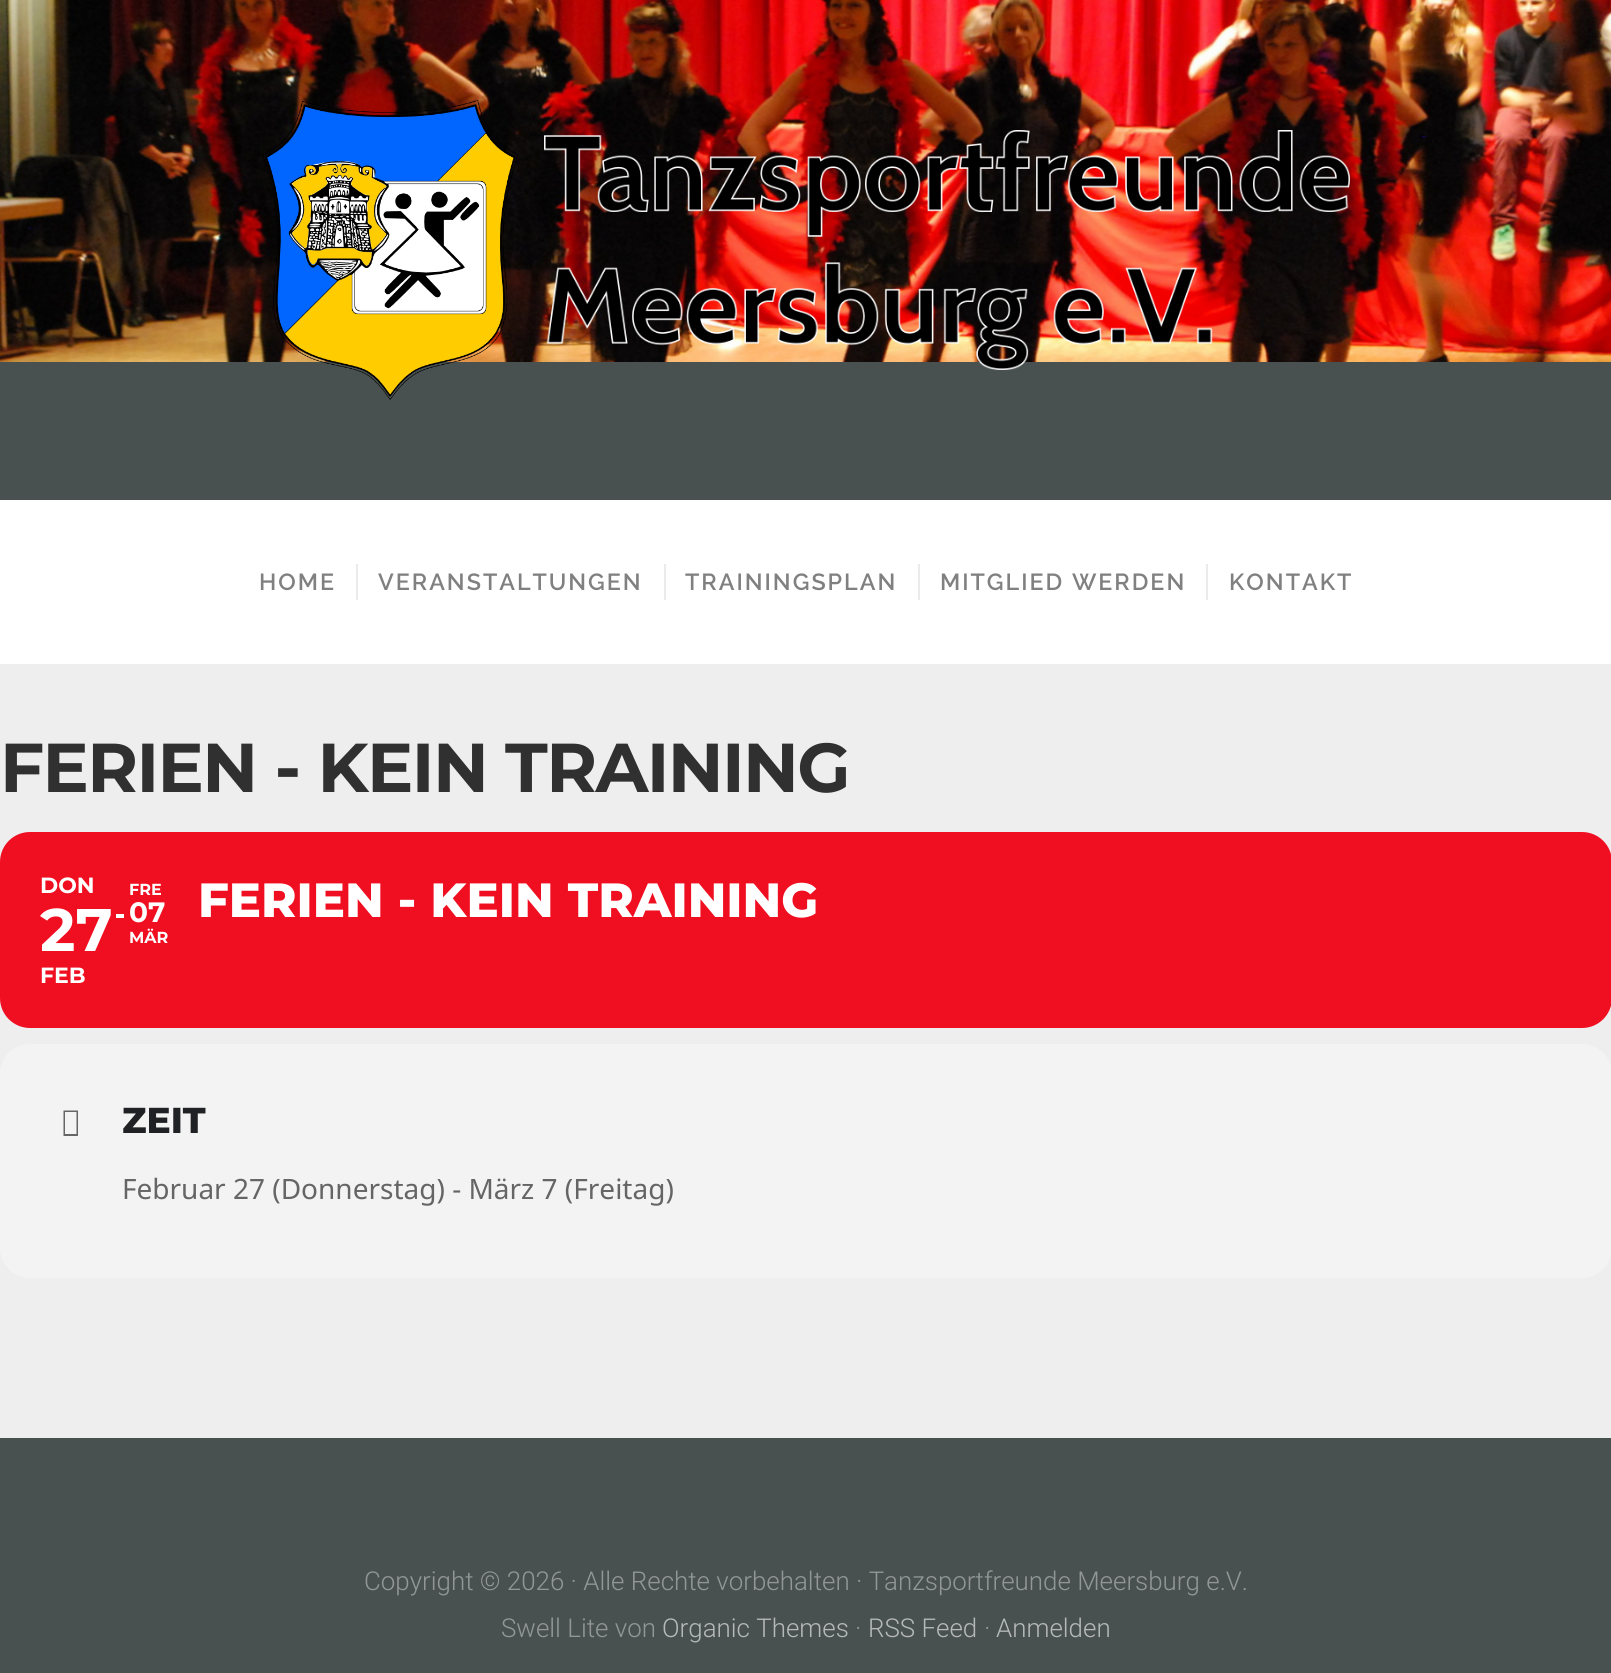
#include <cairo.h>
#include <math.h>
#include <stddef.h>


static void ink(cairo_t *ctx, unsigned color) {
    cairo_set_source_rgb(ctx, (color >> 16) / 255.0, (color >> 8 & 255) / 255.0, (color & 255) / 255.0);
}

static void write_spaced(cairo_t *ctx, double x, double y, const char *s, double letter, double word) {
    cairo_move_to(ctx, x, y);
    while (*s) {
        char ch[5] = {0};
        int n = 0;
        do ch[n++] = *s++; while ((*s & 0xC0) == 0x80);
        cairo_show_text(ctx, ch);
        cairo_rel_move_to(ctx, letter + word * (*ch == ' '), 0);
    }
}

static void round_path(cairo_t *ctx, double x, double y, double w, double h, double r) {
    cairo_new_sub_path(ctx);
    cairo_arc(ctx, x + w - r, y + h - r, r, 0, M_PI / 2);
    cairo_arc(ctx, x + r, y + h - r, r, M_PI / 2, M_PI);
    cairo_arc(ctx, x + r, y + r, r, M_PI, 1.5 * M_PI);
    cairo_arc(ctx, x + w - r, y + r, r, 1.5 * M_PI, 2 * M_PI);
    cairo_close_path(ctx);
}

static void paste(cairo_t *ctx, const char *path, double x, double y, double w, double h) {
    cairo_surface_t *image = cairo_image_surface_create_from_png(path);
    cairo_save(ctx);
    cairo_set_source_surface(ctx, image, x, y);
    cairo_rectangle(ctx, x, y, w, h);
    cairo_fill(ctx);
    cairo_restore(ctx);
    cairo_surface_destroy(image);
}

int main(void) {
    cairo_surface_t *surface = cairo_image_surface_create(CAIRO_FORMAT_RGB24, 1611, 1673);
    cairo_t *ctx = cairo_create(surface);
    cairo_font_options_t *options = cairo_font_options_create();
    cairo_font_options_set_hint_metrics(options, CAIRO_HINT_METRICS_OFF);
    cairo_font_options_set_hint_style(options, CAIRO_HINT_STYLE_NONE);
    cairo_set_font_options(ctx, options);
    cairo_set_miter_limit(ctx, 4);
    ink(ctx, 0xEEEEEE);
    cairo_paint(ctx);
    ink(ctx, 0x495150);
    cairo_rectangle(ctx, 0, 362, 1611, 138);
    cairo_fill(ctx);
    paste(ctx, "media/1.png", 0, 0, 1611, 362);
    paste(ctx, "media/2.png", 262, 100, 256, 300);
    paste(ctx, "media/3.png", 544, 130, 806, 240);
    ink(ctx, 0xFFFFFF);
    cairo_rectangle(ctx, 0, 500, 1611, 164);
    cairo_fill(ctx);
    cairo_select_font_face(ctx, "Raleway SemiBold", CAIRO_FONT_SLANT_NORMAL, CAIRO_FONT_WEIGHT_NORMAL);
    cairo_set_font_size(ctx, 23.25);
    ink(ctx, 0x808080);
    write_spaced(ctx, 259, 590, "HOME", 2, 0);
    ink(ctx, 0xEBEBEB);
    cairo_rectangle(ctx, 356, 564, 2, 36);
    cairo_fill(ctx);
    ink(ctx, 0x808080);
    write_spaced(ctx, 378, 590, "VERANSTALTUNGEN", 2, 0);
    ink(ctx, 0xEBEBEB);
    cairo_rectangle(ctx, 664, 564, 2, 36);
    cairo_fill(ctx);
    ink(ctx, 0x808080);
    write_spaced(ctx, 685, 590, "TRAININGSPLAN", 2, 0);
    ink(ctx, 0xEBEBEB);
    cairo_rectangle(ctx, 918, 564, 2, 36);
    cairo_fill(ctx);
    ink(ctx, 0x808080);
    write_spaced(ctx, 940, 590, "MITGLIED WERDEN", 2, 0);
    ink(ctx, 0xEBEBEB);
    cairo_rectangle(ctx, 1206, 564, 2, 36);
    cairo_fill(ctx);
    ink(ctx, 0x808080);
    write_spaced(ctx, 1229, 590, "KONTAKT", 2, 0);
    cairo_select_font_face(ctx, "Montserrat", CAIRO_FONT_SLANT_NORMAL, CAIRO_FONT_WEIGHT_BOLD);
    cairo_set_font_size(ctx, 69.1);
    ink(ctx, 0x303030);
    write_spaced(ctx, 0, 792, "FERIEN - KEIN TRAINING", -1.6, 0);
    ink(ctx, 0xF00E21);
    round_path(ctx, 0, 832, 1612, 196, 30);
    cairo_fill(ctx);
    cairo_set_font_size(ctx, 22);
    ink(ctx, 0xFFFFFF);
    cairo_move_to(ctx, 40, 893);
    cairo_show_text(ctx, "DON");
    cairo_set_font_size(ctx, 60);
    cairo_move_to(ctx, 40, 951);
    cairo_show_text(ctx, "27");
    cairo_set_font_size(ctx, 22);
    cairo_move_to(ctx, 40, 983);
    cairo_show_text(ctx, "FEB");
    cairo_set_font_size(ctx, 16);
    cairo_move_to(ctx, 129, 895);
    cairo_show_text(ctx, "FRE");
    cairo_rectangle(ctx, 116, 914, 8, 4);
    cairo_fill(ctx);
    cairo_set_font_size(ctx, 28);
    cairo_move_to(ctx, 129, 922);
    cairo_show_text(ctx, "07");
    cairo_set_font_size(ctx, 16);
    cairo_move_to(ctx, 129, 943);
    cairo_show_text(ctx, "MÄR");
    cairo_select_font_face(ctx, "Montserrat ExtraBold", CAIRO_FONT_SLANT_NORMAL, CAIRO_FONT_WEIGHT_NORMAL);
    cairo_set_font_size(ctx, 48);
    cairo_move_to(ctx, 198, 917);
    cairo_show_text(ctx, "FERIEN - KEIN TRAINING");
    ink(ctx, 0xF3F3F3);
    round_path(ctx, 0, 1044, 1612, 234, 30);
    cairo_fill(ctx);
    ink(ctx, 0x656565);
    cairo_new_path(ctx);
    cairo_move_to(ctx, 63.5, 1136);
    cairo_line_to(ctx, 63.5, 1110.5);
    cairo_line_to(ctx, 78, 1110.5);
    cairo_line_to(ctx, 78, 1136);
    cairo_close_path(ctx);
    cairo_move_to(ctx, 65, 1134);
    cairo_line_to(ctx, 76.5, 1134);
    cairo_line_to(ctx, 76.5, 1112);
    cairo_line_to(ctx, 65, 1112);
    cairo_close_path(ctx);
    cairo_fill(ctx);
    cairo_set_font_size(ctx, 36);
    ink(ctx, 0x202124);
    cairo_move_to(ctx, 122, 1133);
    cairo_show_text(ctx, "ZEIT");
    cairo_select_font_face(ctx, "Noto Sans", CAIRO_FONT_SLANT_NORMAL, CAIRO_FONT_WEIGHT_NORMAL);
    cairo_set_font_size(ctx, 28);
    ink(ctx, 0x656565);
    cairo_move_to(ctx, 122, 1199);
    cairo_show_text(ctx, "Februar 27 (Donnerstag) - März 7 (Freitag)");
    ink(ctx, 0x495150);
    cairo_rectangle(ctx, 0, 1438, 1611, 235);
    cairo_fill(ctx);
    cairo_select_font_face(ctx, "Roboto Light", CAIRO_FONT_SLANT_NORMAL, CAIRO_FONT_WEIGHT_NORMAL);
    cairo_set_font_size(ctx, 25.9);
    ink(ctx, 0x929796);
    cairo_move_to(ctx, 364, 1590);
    cairo_show_text(ctx, "Copyright © 2026 · Alle Rechte vorbehalten · Tanzsportfreunde Meersburg e.V.");
    cairo_move_to(ctx, 501, 1637);
    cairo_show_text(ctx, "Swell Lite von");
    ink(ctx, 0xB6B9B9);
    cairo_move_to(ctx, 662, 1637);
    cairo_show_text(ctx, "Organic Themes");
    ink(ctx, 0x929796);
    cairo_move_to(ctx, 855, 1637);
    cairo_show_text(ctx, "·");
    ink(ctx, 0xB6B9B9);
    cairo_move_to(ctx, 868, 1637);
    cairo_show_text(ctx, "RSS Feed");
    ink(ctx, 0x929796);
    cairo_move_to(ctx, 984, 1637);
    cairo_show_text(ctx, "·");
    ink(ctx, 0xB6B9B9);
    cairo_move_to(ctx, 996, 1637);
    cairo_show_text(ctx, "Anmelden");
    cairo_surface_write_to_png(surface, "image.png");
    cairo_font_options_destroy(options);
    cairo_destroy(ctx);
    cairo_surface_destroy(surface);
    return 0;
}
